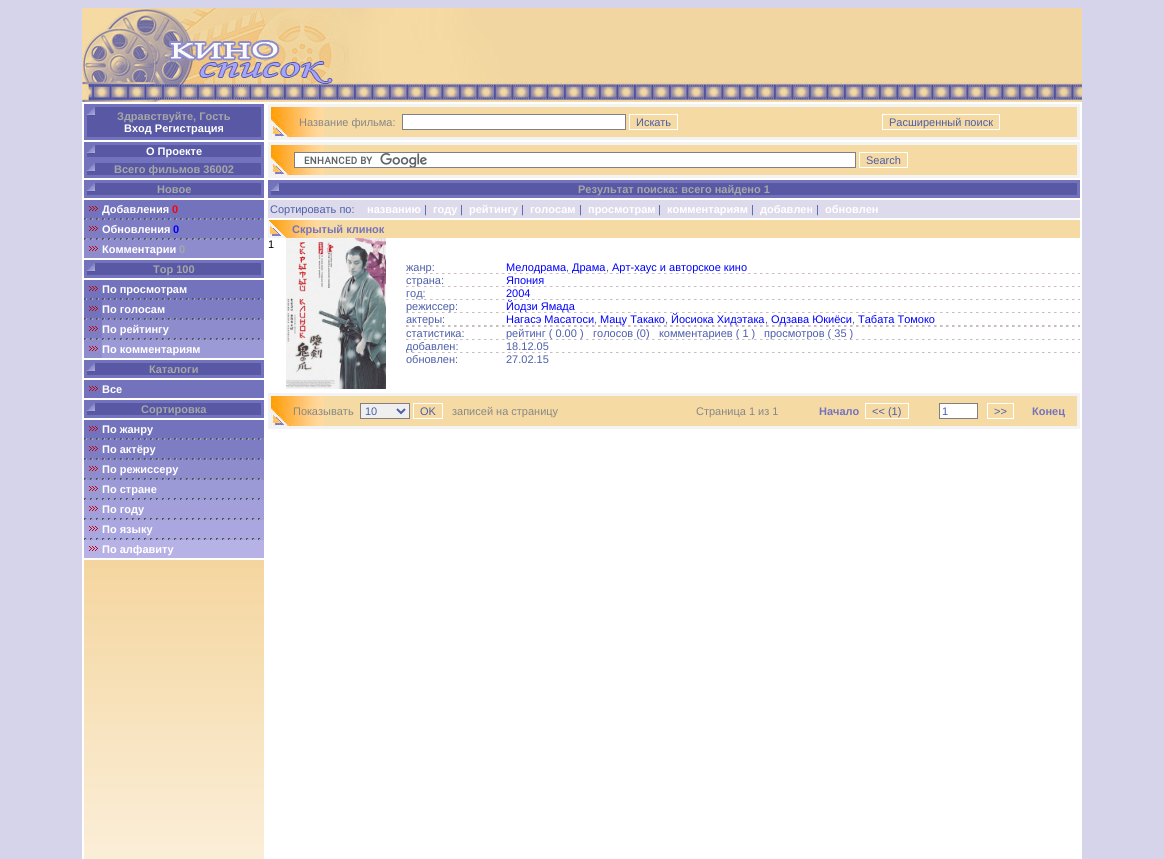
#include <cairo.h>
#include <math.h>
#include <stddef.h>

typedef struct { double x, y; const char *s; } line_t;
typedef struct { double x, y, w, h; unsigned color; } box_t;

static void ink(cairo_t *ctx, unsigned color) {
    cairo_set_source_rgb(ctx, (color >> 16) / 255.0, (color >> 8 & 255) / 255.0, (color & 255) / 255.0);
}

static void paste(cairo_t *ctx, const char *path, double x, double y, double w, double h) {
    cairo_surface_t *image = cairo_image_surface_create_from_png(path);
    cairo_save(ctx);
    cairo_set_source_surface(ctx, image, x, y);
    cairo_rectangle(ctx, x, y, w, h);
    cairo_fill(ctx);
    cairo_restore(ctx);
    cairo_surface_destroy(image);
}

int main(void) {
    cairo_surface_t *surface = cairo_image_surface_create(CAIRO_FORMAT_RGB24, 1164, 859);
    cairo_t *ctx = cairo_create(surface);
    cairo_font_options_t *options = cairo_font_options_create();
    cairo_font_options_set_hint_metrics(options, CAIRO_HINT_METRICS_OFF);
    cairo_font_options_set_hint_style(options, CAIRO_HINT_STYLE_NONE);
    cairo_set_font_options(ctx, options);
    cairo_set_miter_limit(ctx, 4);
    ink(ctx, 0xD6D4EA);
    cairo_paint(ctx);
    paste(ctx, "media/1.png", 82, 8, 1000, 94);
    {
        static const box_t items[] = {
            {82, 102, 1000, 757, 0xFFFFFF},
            {84, 104, 180, 36, 0x7373BD},
            {87, 107, 174, 30, 0x5858A5},
        };
        for (size_t i = 0; i < sizeof items / sizeof *items; i++) {
            ink(ctx, items[i].color);
            cairo_rectangle(ctx, items[i].x, items[i].y, items[i].w, items[i].h);
            cairo_fill(ctx);
        }
    }
    paste(ctx, "media/2.png", 87, 107, 8, 9);
    cairo_select_font_face(ctx, "Liberation Sans", CAIRO_FONT_SLANT_NORMAL, CAIRO_FONT_WEIGHT_BOLD);
    cairo_set_font_size(ctx, 11);
    ink(ctx, 0xA7A7A7);
    cairo_move_to(ctx, 117, 120);
    cairo_show_text(ctx, "Здравствуйте, Гость");
    ink(ctx, 0xFFFFFF);
    cairo_move_to(ctx, 124, 132);
    cairo_show_text(ctx, "Вход Регистрация");
    ink(ctx, 0x7373BD);
    cairo_rectangle(ctx, 84, 142, 180, 36);
    cairo_fill(ctx);
    ink(ctx, 0x5858A5);
    cairo_rectangle(ctx, 87, 145, 174, 12);
    cairo_fill(ctx);
    paste(ctx, "media/2.png", 87, 145, 8, 9);
    ink(ctx, 0xFFFFFF);
    cairo_move_to(ctx, 146, 155);
    cairo_show_text(ctx, "О Проекте");
    ink(ctx, 0x5858A5);
    cairo_rectangle(ctx, 87, 163, 174, 12);
    cairo_fill(ctx);
    paste(ctx, "media/2.png", 87, 163, 8, 9);
    ink(ctx, 0xA7A7A7);
    cairo_move_to(ctx, 114, 173);
    cairo_show_text(ctx, "Всего фильмов 36002");
    ink(ctx, 0x7373BD);
    cairo_rectangle(ctx, 84, 180, 180, 18);
    cairo_fill(ctx);
    ink(ctx, 0x5858A5);
    cairo_rectangle(ctx, 87, 183, 174, 12);
    cairo_fill(ctx);
    paste(ctx, "media/2.png", 87, 183, 8, 9);
    ink(ctx, 0xA7A7A7);
    cairo_move_to(ctx, 157, 193);
    cairo_show_text(ctx, "Новое");
    ink(ctx, 0x7373BD);
    cairo_rectangle(ctx, 84, 200, 180, 18);
    cairo_fill(ctx);
    paste(ctx, "media/3.png", 89, 206, 9, 5);
    ink(ctx, 0xFFFFFF);
    cairo_move_to(ctx, 102, 213);
    cairo_show_text(ctx, "Добавления");
    ink(ctx, 0xFF0000);
    cairo_move_to(ctx, 172, 213);
    cairo_show_text(ctx, "0");
    ink(ctx, 0x7E7DC4);
    cairo_rectangle(ctx, 84, 218, 180, 2);
    cairo_fill(ctx);
    paste(ctx, "media/4.png", 84, 218, 177, 2);
    cairo_rectangle(ctx, 84, 220, 180, 18);
    cairo_fill(ctx);
    paste(ctx, "media/5.png", 89, 226, 9, 5);
    ink(ctx, 0xFFFFFF);
    cairo_move_to(ctx, 102, 233);
    cairo_show_text(ctx, "Обновления");
    ink(ctx, 0x0000FF);
    cairo_move_to(ctx, 173, 233);
    cairo_show_text(ctx, "0");
    ink(ctx, 0x8E8CCD);
    cairo_rectangle(ctx, 84, 238, 180, 2);
    cairo_fill(ctx);
    paste(ctx, "media/6.png", 84, 238, 177, 2);
    cairo_rectangle(ctx, 84, 240, 180, 18);
    cairo_fill(ctx);
    paste(ctx, "media/7.png", 89, 246, 9, 5);
    ink(ctx, 0xFFFFFF);
    cairo_move_to(ctx, 102, 253);
    cairo_show_text(ctx, "Комментарии");
    ink(ctx, 0xA7A7A7);
    cairo_move_to(ctx, 179, 253);
    cairo_show_text(ctx, "0");
    ink(ctx, 0x7373BD);
    cairo_rectangle(ctx, 84, 260, 180, 18);
    cairo_fill(ctx);
    ink(ctx, 0x5858A5);
    cairo_rectangle(ctx, 87, 263, 174, 12);
    cairo_fill(ctx);
    paste(ctx, "media/2.png", 87, 263, 8, 9);
    ink(ctx, 0xA7A7A7);
    cairo_move_to(ctx, 153, 273);
    cairo_show_text(ctx, "Top 100");
    ink(ctx, 0x7373BD);
    cairo_rectangle(ctx, 84, 280, 180, 20);
    cairo_fill(ctx);
    paste(ctx, "media/3.png", 89, 286, 9, 5);
    ink(ctx, 0xFFFFFF);
    cairo_move_to(ctx, 102, 293);
    cairo_show_text(ctx, "По просмотрам");
    paste(ctx, "media/8.png", 84, 298, 177, 2);
    ink(ctx, 0x7373BD);
    cairo_rectangle(ctx, 84, 300, 18, 18);
    cairo_fill(ctx);
    paste(ctx, "media/3.png", 89, 306, 9, 5);
    ink(ctx, 0x7E7DC4);
    cairo_rectangle(ctx, 102, 300, 162, 18);
    cairo_fill(ctx);
    ink(ctx, 0xFFFFFF);
    cairo_move_to(ctx, 102, 313);
    cairo_show_text(ctx, "По голосам");
    ink(ctx, 0x7E7DC4);
    cairo_rectangle(ctx, 84, 318, 180, 2);
    cairo_fill(ctx);
    paste(ctx, "media/4.png", 84, 318, 177, 2);
    cairo_rectangle(ctx, 84, 320, 18, 18);
    cairo_fill(ctx);
    paste(ctx, "media/5.png", 89, 326, 9, 5);
    ink(ctx, 0x8E8CCD);
    cairo_rectangle(ctx, 102, 320, 162, 18);
    cairo_fill(ctx);
    ink(ctx, 0xFFFFFF);
    cairo_move_to(ctx, 102, 333);
    cairo_show_text(ctx, "По рейтингу");
    ink(ctx, 0x8E8CCD);
    cairo_rectangle(ctx, 84, 338, 180, 2);
    cairo_fill(ctx);
    paste(ctx, "media/6.png", 84, 338, 177, 2);
    cairo_rectangle(ctx, 84, 340, 18, 18);
    cairo_fill(ctx);
    paste(ctx, "media/7.png", 89, 346, 9, 5);
    ink(ctx, 0x9C99D7);
    cairo_rectangle(ctx, 102, 340, 162, 18);
    cairo_fill(ctx);
    ink(ctx, 0xFFFFFF);
    cairo_move_to(ctx, 102, 353);
    cairo_show_text(ctx, "По комментариям");
    ink(ctx, 0x7373BD);
    cairo_rectangle(ctx, 84, 360, 180, 18);
    cairo_fill(ctx);
    ink(ctx, 0x5858A5);
    cairo_rectangle(ctx, 87, 363, 174, 12);
    cairo_fill(ctx);
    paste(ctx, "media/2.png", 87, 363, 8, 9);
    ink(ctx, 0xA7A7A7);
    cairo_move_to(ctx, 149, 373);
    cairo_show_text(ctx, "Каталоги");
    ink(ctx, 0x7373BD);
    cairo_rectangle(ctx, 84, 380, 180, 18);
    cairo_fill(ctx);
    paste(ctx, "media/3.png", 89, 386, 9, 5);
    ink(ctx, 0xFFFFFF);
    cairo_move_to(ctx, 102, 393);
    cairo_show_text(ctx, "Все");
    ink(ctx, 0x7373BD);
    cairo_rectangle(ctx, 84, 400, 180, 18);
    cairo_fill(ctx);
    ink(ctx, 0x5858A5);
    cairo_rectangle(ctx, 87, 403, 174, 12);
    cairo_fill(ctx);
    paste(ctx, "media/2.png", 87, 403, 8, 9);
    ink(ctx, 0xA7A7A7);
    cairo_move_to(ctx, 141, 413);
    cairo_show_text(ctx, "Сортировка");
    ink(ctx, 0x7373BD);
    cairo_rectangle(ctx, 84, 420, 180, 18);
    cairo_fill(ctx);
    paste(ctx, "media/3.png", 89, 426, 9, 5);
    ink(ctx, 0xFFFFFF);
    cairo_move_to(ctx, 102, 433);
    cairo_show_text(ctx, "По жанру");
    ink(ctx, 0x7E7DC4);
    cairo_rectangle(ctx, 84, 438, 180, 2);
    cairo_fill(ctx);
    paste(ctx, "media/4.png", 84, 438, 177, 2);
    cairo_rectangle(ctx, 84, 440, 180, 20);
    cairo_fill(ctx);
    paste(ctx, "media/5.png", 89, 446, 9, 5);
    ink(ctx, 0xFFFFFF);
    cairo_move_to(ctx, 102, 453);
    cairo_show_text(ctx, "По актёру");
    paste(ctx, "media/4.png", 84, 458, 177, 2);
    ink(ctx, 0x8E8CCD);
    cairo_rectangle(ctx, 84, 460, 180, 20);
    cairo_fill(ctx);
    paste(ctx, "media/7.png", 89, 466, 9, 5);
    ink(ctx, 0xFFFFFF);
    cairo_move_to(ctx, 102, 473);
    cairo_show_text(ctx, "По режиссеру");
    paste(ctx, "media/6.png", 84, 478, 177, 2);
    ink(ctx, 0x9C99D7);
    cairo_rectangle(ctx, 84, 480, 180, 20);
    cairo_fill(ctx);
    paste(ctx, "media/9.png", 89, 486, 9, 5);
    ink(ctx, 0xFFFFFF);
    cairo_move_to(ctx, 102, 493);
    cairo_show_text(ctx, "По стране");
    paste(ctx, "media/10.png", 84, 498, 177, 2);
    ink(ctx, 0xA39FDB);
    cairo_rectangle(ctx, 84, 500, 180, 20);
    cairo_fill(ctx);
    paste(ctx, "media/11.png", 89, 506, 9, 5);
    ink(ctx, 0xFFFFFF);
    cairo_move_to(ctx, 102, 513);
    cairo_show_text(ctx, "По году");
    paste(ctx, "media/12.png", 84, 518, 177, 2);
    ink(ctx, 0xAAA6DF);
    cairo_rectangle(ctx, 84, 520, 180, 20);
    cairo_fill(ctx);
    paste(ctx, "media/13.png", 89, 526, 9, 5);
    ink(ctx, 0xFFFFFF);
    cairo_move_to(ctx, 102, 533);
    cairo_show_text(ctx, "По языку");
    paste(ctx, "media/14.png", 84, 538, 177, 2);
    ink(ctx, 0xB7B2E6);
    cairo_rectangle(ctx, 84, 540, 180, 18);
    cairo_fill(ctx);
    paste(ctx, "media/15.png", 89, 546, 9, 5);
    ink(ctx, 0xFFFFFF);
    cairo_move_to(ctx, 102, 553);
    cairo_show_text(ctx, "По алфавиту");
    paste(ctx, "media/16.png", 84, 560, 180, 299);
    ink(ctx, 0xF3F3F3);
    cairo_rectangle(ctx, 268, 104, 812, 36);
    cairo_fill(ctx);
    ink(ctx, 0xF5DAA3);
    cairo_rectangle(ctx, 324, 107, 753, 30);
    cairo_fill(ctx);
    paste(ctx, "media/17.png", 271, 107, 53, 30);
    cairo_select_font_face(ctx, "Liberation Sans", CAIRO_FONT_SLANT_NORMAL, CAIRO_FONT_WEIGHT_NORMAL);
    ink(ctx, 0x878787);
    cairo_move_to(ctx, 299, 126);
    cairo_show_text(ctx, "Название фильма:");
    ink(ctx, 0xFFFFFF);
    cairo_rectangle(ctx, 402.5, 114.5, 223, 15);
    cairo_fill_preserve(ctx);
    ink(ctx, 0x808080);
    cairo_set_line_width(ctx, 1);
    cairo_stroke(ctx);
    cairo_rectangle(ctx, 629.5, 114.5, 48, 15);
    ink(ctx, 0xFFFFFF);
    cairo_stroke(ctx);
    ink(ctx, 0x4C5EA8);
    cairo_move_to(ctx, 636, 126);
    cairo_show_text(ctx, "Искать");
    cairo_rectangle(ctx, 882.5, 114.5, 117, 15);
    ink(ctx, 0xFFFFFF);
    cairo_stroke(ctx);
    ink(ctx, 0x4C5EA8);
    cairo_move_to(ctx, 889, 126);
    cairo_show_text(ctx, "Расширенный поиск");
    ink(ctx, 0xF3F3F3);
    cairo_rectangle(ctx, 268, 142, 812, 36);
    cairo_fill(ctx);
    ink(ctx, 0xF5DAA3);
    cairo_rectangle(ctx, 324, 145, 753, 30);
    cairo_fill(ctx);
    paste(ctx, "media/17.png", 271, 145, 53, 30);
    ink(ctx, 0xFFFFFF);
    cairo_rectangle(ctx, 295, 153, 560, 14);
    cairo_fill(ctx);
    paste(ctx, "media/18.png", 304, 153, 123, 14);
    cairo_rectangle(ctx, 294.5, 152.5, 561, 15);
    ink(ctx, 0x808080);
    cairo_stroke(ctx);
    cairo_rectangle(ctx, 859.5, 152.5, 48, 15);
    ink(ctx, 0xFFFFFF);
    cairo_stroke(ctx);
    ink(ctx, 0x4C5EA8);
    cairo_move_to(ctx, 866, 164);
    cairo_show_text(ctx, "Search");
    ink(ctx, 0x7373BD);
    cairo_rectangle(ctx, 268, 180, 812, 18);
    cairo_fill(ctx);
    ink(ctx, 0x5858A5);
    cairo_rectangle(ctx, 271, 183, 806, 12);
    cairo_fill(ctx);
    paste(ctx, "media/2.png", 271, 183, 8, 9);
    cairo_select_font_face(ctx, "Liberation Sans", CAIRO_FONT_SLANT_NORMAL, CAIRO_FONT_WEIGHT_BOLD);
    ink(ctx, 0xA7A7A7);
    cairo_move_to(ctx, 578, 193);
    cairo_show_text(ctx, "Результат поиска: всего найдено 1");
    ink(ctx, 0xDDDBEB);
    cairo_rectangle(ctx, 268, 200, 812, 18);
    cairo_fill(ctx);
    cairo_select_font_face(ctx, "Liberation Sans", CAIRO_FONT_SLANT_NORMAL, CAIRO_FONT_WEIGHT_NORMAL);
    ink(ctx, 0x4C5EA8);
    cairo_move_to(ctx, 270, 213);
    cairo_show_text(ctx, "Сортировать по:");
    cairo_select_font_face(ctx, "Liberation Sans", CAIRO_FONT_SLANT_NORMAL, CAIRO_FONT_WEIGHT_BOLD);
    ink(ctx, 0xFFFFFF);
    cairo_move_to(ctx, 367, 213);
    cairo_show_text(ctx, "названию");
    cairo_select_font_face(ctx, "Liberation Sans", CAIRO_FONT_SLANT_NORMAL, CAIRO_FONT_WEIGHT_NORMAL);
    ink(ctx, 0x4C5EA8);
    cairo_move_to(ctx, 424, 213);
    cairo_show_text(ctx, "|");
    cairo_select_font_face(ctx, "Liberation Sans", CAIRO_FONT_SLANT_NORMAL, CAIRO_FONT_WEIGHT_BOLD);
    ink(ctx, 0xFFFFFF);
    cairo_move_to(ctx, 433, 213);
    cairo_show_text(ctx, "году");
    cairo_select_font_face(ctx, "Liberation Sans", CAIRO_FONT_SLANT_NORMAL, CAIRO_FONT_WEIGHT_NORMAL);
    ink(ctx, 0x4C5EA8);
    cairo_move_to(ctx, 460, 213);
    cairo_show_text(ctx, "|");
    cairo_select_font_face(ctx, "Liberation Sans", CAIRO_FONT_SLANT_NORMAL, CAIRO_FONT_WEIGHT_BOLD);
    ink(ctx, 0xFFFFFF);
    cairo_move_to(ctx, 469, 213);
    cairo_show_text(ctx, "рейтингу");
    cairo_select_font_face(ctx, "Liberation Sans", CAIRO_FONT_SLANT_NORMAL, CAIRO_FONT_WEIGHT_NORMAL);
    ink(ctx, 0x4C5EA8);
    cairo_move_to(ctx, 521, 213);
    cairo_show_text(ctx, "|");
    cairo_select_font_face(ctx, "Liberation Sans", CAIRO_FONT_SLANT_NORMAL, CAIRO_FONT_WEIGHT_BOLD);
    ink(ctx, 0xFFFFFF);
    cairo_move_to(ctx, 530, 213);
    cairo_show_text(ctx, "голосам");
    cairo_select_font_face(ctx, "Liberation Sans", CAIRO_FONT_SLANT_NORMAL, CAIRO_FONT_WEIGHT_NORMAL);
    ink(ctx, 0x4C5EA8);
    cairo_move_to(ctx, 579, 213);
    cairo_show_text(ctx, "|");
    cairo_select_font_face(ctx, "Liberation Sans", CAIRO_FONT_SLANT_NORMAL, CAIRO_FONT_WEIGHT_BOLD);
    ink(ctx, 0xFFFFFF);
    cairo_move_to(ctx, 588, 213);
    cairo_show_text(ctx, "просмотрам");
    cairo_select_font_face(ctx, "Liberation Sans", CAIRO_FONT_SLANT_NORMAL, CAIRO_FONT_WEIGHT_NORMAL);
    ink(ctx, 0x4C5EA8);
    cairo_move_to(ctx, 658, 213);
    cairo_show_text(ctx, "|");
    cairo_select_font_face(ctx, "Liberation Sans", CAIRO_FONT_SLANT_NORMAL, CAIRO_FONT_WEIGHT_BOLD);
    ink(ctx, 0xFFFFFF);
    cairo_move_to(ctx, 667, 213);
    cairo_show_text(ctx, "комментариям");
    cairo_select_font_face(ctx, "Liberation Sans", CAIRO_FONT_SLANT_NORMAL, CAIRO_FONT_WEIGHT_NORMAL);
    ink(ctx, 0x4C5EA8);
    cairo_move_to(ctx, 751, 213);
    cairo_show_text(ctx, "|");
    cairo_select_font_face(ctx, "Liberation Sans", CAIRO_FONT_SLANT_NORMAL, CAIRO_FONT_WEIGHT_BOLD);
    ink(ctx, 0xFFFFFF);
    cairo_move_to(ctx, 760, 213);
    cairo_show_text(ctx, "добавлен");
    cairo_select_font_face(ctx, "Liberation Sans", CAIRO_FONT_SLANT_NORMAL, CAIRO_FONT_WEIGHT_NORMAL);
    ink(ctx, 0x4C5EA8);
    cairo_move_to(ctx, 816, 213);
    cairo_show_text(ctx, "|");
    cairo_select_font_face(ctx, "Liberation Sans", CAIRO_FONT_SLANT_NORMAL, CAIRO_FONT_WEIGHT_BOLD);
    ink(ctx, 0xFFFFFF);
    cairo_move_to(ctx, 825, 213);
    cairo_show_text(ctx, "обновлен");
    ink(ctx, 0xF5DAA3);
    cairo_rectangle(ctx, 321, 220, 759, 18);
    cairo_fill(ctx);
    paste(ctx, "media/19.png", 268, 220, 53, 18);
    ink(ctx, 0x7373BD);
    cairo_move_to(ctx, 292, 233);
    cairo_show_text(ctx, "Скрытый клинок");
    cairo_select_font_face(ctx, "Liberation Sans", CAIRO_FONT_SLANT_NORMAL, CAIRO_FONT_WEIGHT_NORMAL);
    ink(ctx, 0x000000);
    cairo_move_to(ctx, 268, 248);
    cairo_show_text(ctx, "1");
    paste(ctx, "media/20.png", 286, 238, 100, 151);
    paste(ctx, "media/21.png", 406, 273, 674, 1);
    ink(ctx, 0x4C5EA8);
    cairo_move_to(ctx, 406, 271);
    cairo_show_text(ctx, "жанр:");
    ink(ctx, 0x0000FF);
    cairo_move_to(ctx, 506, 271);
    cairo_show_text(ctx, "Мелодрама");
    ink(ctx, 0x4C5EA8);
    cairo_move_to(ctx, 566, 271);
    cairo_show_text(ctx, ",");
    ink(ctx, 0x0000FF);
    cairo_move_to(ctx, 572, 271);
    cairo_show_text(ctx, "Драма");
    ink(ctx, 0x4C5EA8);
    cairo_move_to(ctx, 606, 271);
    cairo_show_text(ctx, ",");
    ink(ctx, 0x0000FF);
    cairo_move_to(ctx, 612, 271);
    cairo_show_text(ctx, "Арт-хаус и авторское кино");
    paste(ctx, "media/21.png", 406, 286, 674, 1);
    ink(ctx, 0x4C5EA8);
    cairo_move_to(ctx, 406, 284);
    cairo_show_text(ctx, "страна:");
    ink(ctx, 0x0000FF);
    cairo_move_to(ctx, 506, 284);
    cairo_show_text(ctx, "Япония");
    paste(ctx, "media/21.png", 406, 299, 674, 1);
    ink(ctx, 0x4C5EA8);
    cairo_move_to(ctx, 406, 297);
    cairo_show_text(ctx, "год:");
    ink(ctx, 0x0000FF);
    cairo_move_to(ctx, 506, 297);
    cairo_show_text(ctx, "2004");
    paste(ctx, "media/21.png", 406, 312, 674, 1);
    ink(ctx, 0x4C5EA8);
    cairo_move_to(ctx, 406, 310);
    cairo_show_text(ctx, "режиссер:");
    ink(ctx, 0x0000FF);
    cairo_move_to(ctx, 506, 310);
    cairo_show_text(ctx, "Йодзи Ямада");
    paste(ctx, "media/21.png", 406, 325, 674, 1);
    ink(ctx, 0x4C5EA8);
    cairo_move_to(ctx, 406, 323);
    cairo_show_text(ctx, "актеры:");
    ink(ctx, 0x0000FF);
    cairo_move_to(ctx, 506, 323);
    cairo_show_text(ctx, "Нагасэ Масатоси");
    ink(ctx, 0x4C5EA8);
    cairo_move_to(ctx, 594, 323);
    cairo_show_text(ctx, ",");
    ink(ctx, 0x0000FF);
    cairo_move_to(ctx, 600, 323);
    cairo_show_text(ctx, "Мацу Такако");
    ink(ctx, 0x4C5EA8);
    cairo_move_to(ctx, 665, 323);
    cairo_show_text(ctx, ",");
    ink(ctx, 0x0000FF);
    cairo_move_to(ctx, 671, 323);
    cairo_show_text(ctx, "Йосиока Хидэтака");
    ink(ctx, 0x4C5EA8);
    cairo_move_to(ctx, 765, 323);
    cairo_show_text(ctx, ",");
    ink(ctx, 0x0000FF);
    cairo_move_to(ctx, 771, 323);
    cairo_show_text(ctx, "Одзава Юкиёси");
    ink(ctx, 0x4C5EA8);
    cairo_move_to(ctx, 852, 323);
    cairo_show_text(ctx, ",");
    ink(ctx, 0x0000FF);
    cairo_move_to(ctx, 858, 323);
    cairo_show_text(ctx, "Табата Томоко");
    paste(ctx, "media/21.png", 406, 326, 674, 1);
    ink(ctx, 0x4C5EA8);
    cairo_move_to(ctx, 406, 337);
    cairo_show_text(ctx, "статистика:");
    paste(ctx, "media/21.png", 406, 339, 674, 1);
    {
        static const line_t items[] = {
            {506, 337, "рейтинг ( 0.00 )"},
            {593, 337, "голосов (0)"},
            {659, 337, "комментариев ( 1 )"},
            {764, 337, "просмотров ( 35 )"},
        };
        for (size_t i = 0; i < sizeof items / sizeof *items; i++) {
            cairo_move_to(ctx, items[i].x, items[i].y);
            cairo_show_text(ctx, items[i].s);
        }
    }
    paste(ctx, "media/21.png", 406, 352, 674, 1);
    {
        static const line_t items[] = {
            {406, 350, "добавлен:"},
            {506, 350, "18.12.05"},
            {406, 363, "обновлен:"},
            {506, 363, "27.02.15"},
        };
        for (size_t i = 0; i < sizeof items / sizeof *items; i++) {
            cairo_move_to(ctx, items[i].x, items[i].y);
            cairo_show_text(ctx, items[i].s);
        }
    }
    ink(ctx, 0xF3F3F3);
    cairo_rectangle(ctx, 268, 393, 812, 36);
    cairo_fill(ctx);
    ink(ctx, 0xF5DAA3);
    cairo_rectangle(ctx, 324, 396, 753, 30);
    cairo_fill(ctx);
    paste(ctx, "media/17.png", 271, 396, 53, 30);
    ink(ctx, 0x878787);
    cairo_move_to(ctx, 293, 415);
    cairo_show_text(ctx, "Показывать");
    ink(ctx, 0xEFEFEF);
    cairo_rectangle(ctx, 360.5, 403.5, 49, 15);
    cairo_fill_preserve(ctx);
    ink(ctx, 0x808080);
    cairo_stroke(ctx);
    cairo_new_path(ctx);
    cairo_move_to(ctx, 397, 409);
    cairo_line_to(ctx, 401, 413);
    cairo_line_to(ctx, 405, 409);
    ink(ctx, 0x4C5EA8);
    cairo_set_line_width(ctx, 2);
    cairo_stroke(ctx);
    cairo_move_to(ctx, 365, 415);
    cairo_show_text(ctx, "10");
    cairo_rectangle(ctx, 413.5, 403.5, 29, 15);
    ink(ctx, 0xFFFFFF);
    cairo_set_line_width(ctx, 1);
    cairo_stroke(ctx);
    ink(ctx, 0x4C5EA8);
    cairo_move_to(ctx, 420, 415);
    cairo_show_text(ctx, "OK");
    ink(ctx, 0x878787);
    cairo_move_to(ctx, 452, 415);
    cairo_show_text(ctx, "записей на страницу");
    cairo_move_to(ctx, 696, 415);
    cairo_show_text(ctx, "Страница 1 из 1");
    cairo_select_font_face(ctx, "Liberation Sans", CAIRO_FONT_SLANT_NORMAL, CAIRO_FONT_WEIGHT_BOLD);
    ink(ctx, 0x7373BD);
    cairo_move_to(ctx, 819, 415);
    cairo_show_text(ctx, "Начало");
    cairo_rectangle(ctx, 865.5, 403.5, 43, 15);
    ink(ctx, 0xFFFFFF);
    cairo_stroke(ctx);
    cairo_select_font_face(ctx, "Liberation Sans", CAIRO_FONT_SLANT_NORMAL, CAIRO_FONT_WEIGHT_NORMAL);
    ink(ctx, 0x4C5EA8);
    cairo_move_to(ctx, 872, 415);
    cairo_show_text(ctx, "<< (1)");
    ink(ctx, 0xFFFFFF);
    cairo_rectangle(ctx, 939.5, 403.5, 38, 15);
    cairo_fill_preserve(ctx);
    ink(ctx, 0x808080);
    cairo_stroke(ctx);
    ink(ctx, 0x4C5EA8);
    cairo_move_to(ctx, 942, 415);
    cairo_show_text(ctx, "1");
    cairo_rectangle(ctx, 987.5, 403.5, 26, 15);
    ink(ctx, 0xFFFFFF);
    cairo_stroke(ctx);
    ink(ctx, 0x4C5EA8);
    cairo_move_to(ctx, 994, 415);
    cairo_show_text(ctx, ">>");
    cairo_select_font_face(ctx, "Liberation Sans", CAIRO_FONT_SLANT_NORMAL, CAIRO_FONT_WEIGHT_BOLD);
    ink(ctx, 0x7373BD);
    cairo_move_to(ctx, 1032, 415);
    cairo_show_text(ctx, "Конец");
    cairo_surface_write_to_png(surface, "image.png");
    cairo_font_options_destroy(options);
    cairo_destroy(ctx);
    cairo_surface_destroy(surface);
    return 0;
}
